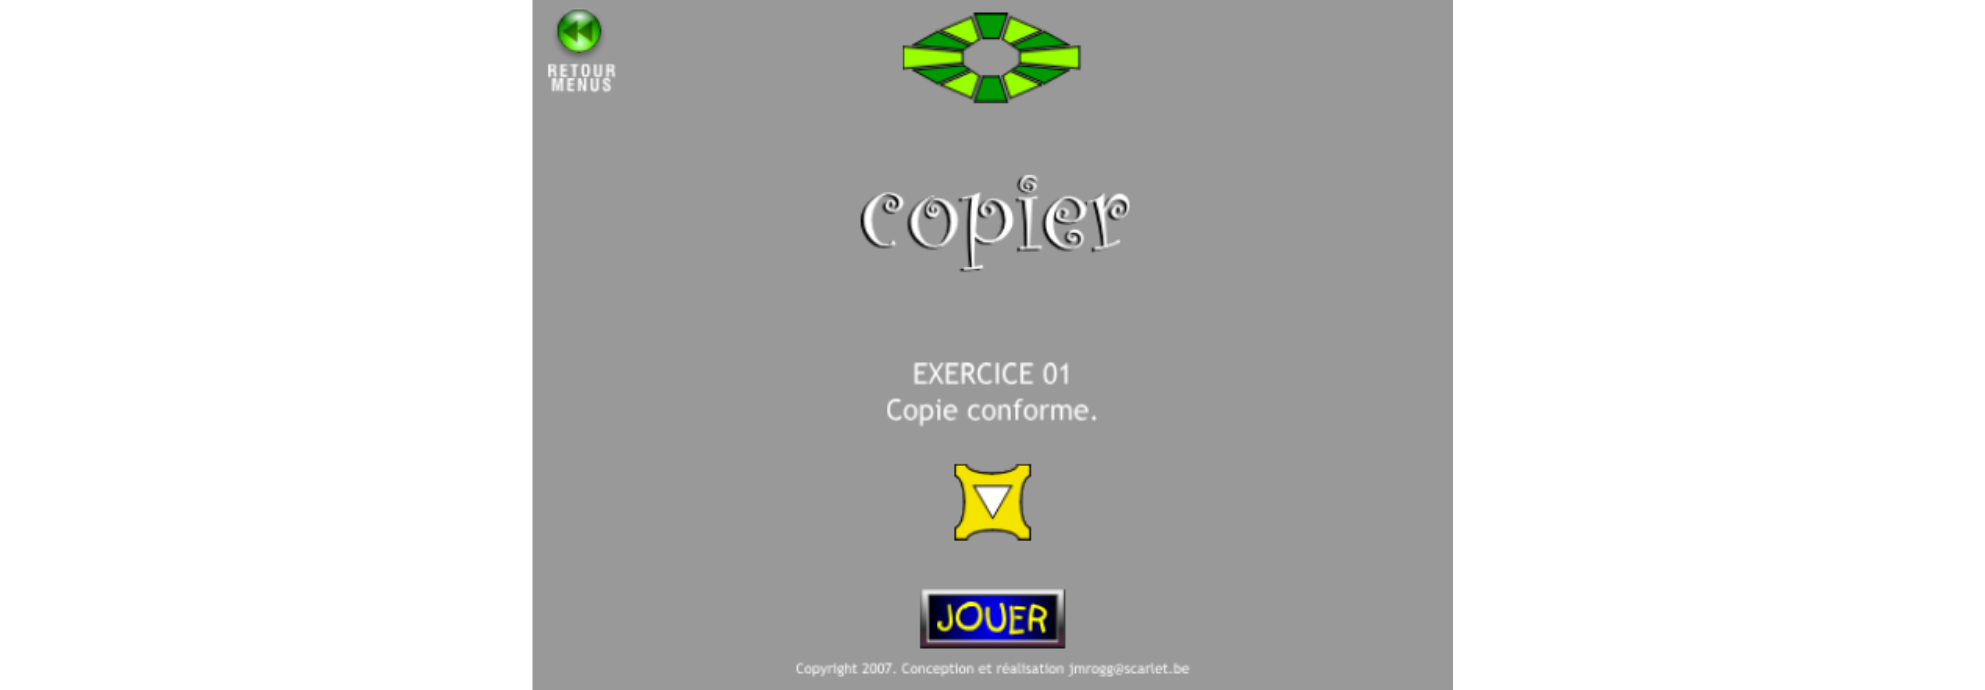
#include <cairo.h>
#include <math.h>
#include <stddef.h>


static void ink(cairo_t *ctx, unsigned color) {
    cairo_set_source_rgb(ctx, (color >> 16) / 255.0, (color >> 8 & 255) / 255.0, (color & 255) / 255.0);
}

static void paste(cairo_t *ctx, const char *path, double x, double y, double w, double h) {
    cairo_surface_t *image = cairo_image_surface_create_from_png(path);
    cairo_save(ctx);
    cairo_set_source_surface(ctx, image, x, y);
    cairo_rectangle(ctx, x, y, w, h);
    cairo_fill(ctx);
    cairo_restore(ctx);
    cairo_surface_destroy(image);
}

int main(void) {
    cairo_surface_t *surface = cairo_image_surface_create(CAIRO_FORMAT_RGB24, 1985, 690);
    cairo_t *ctx = cairo_create(surface);
    cairo_font_options_t *options = cairo_font_options_create();
    cairo_font_options_set_hint_metrics(options, CAIRO_HINT_METRICS_OFF);
    cairo_font_options_set_hint_style(options, CAIRO_HINT_STYLE_NONE);
    cairo_set_font_options(ctx, options);
    cairo_set_miter_limit(ctx, 4);
    ink(ctx, 0xFFFFFF);
    cairo_paint(ctx);
    paste(ctx, "media/1.png", 532, 0, 921, 690);
    cairo_surface_write_to_png(surface, "image.png");
    cairo_font_options_destroy(options);
    cairo_destroy(ctx);
    cairo_surface_destroy(surface);
    return 0;
}
